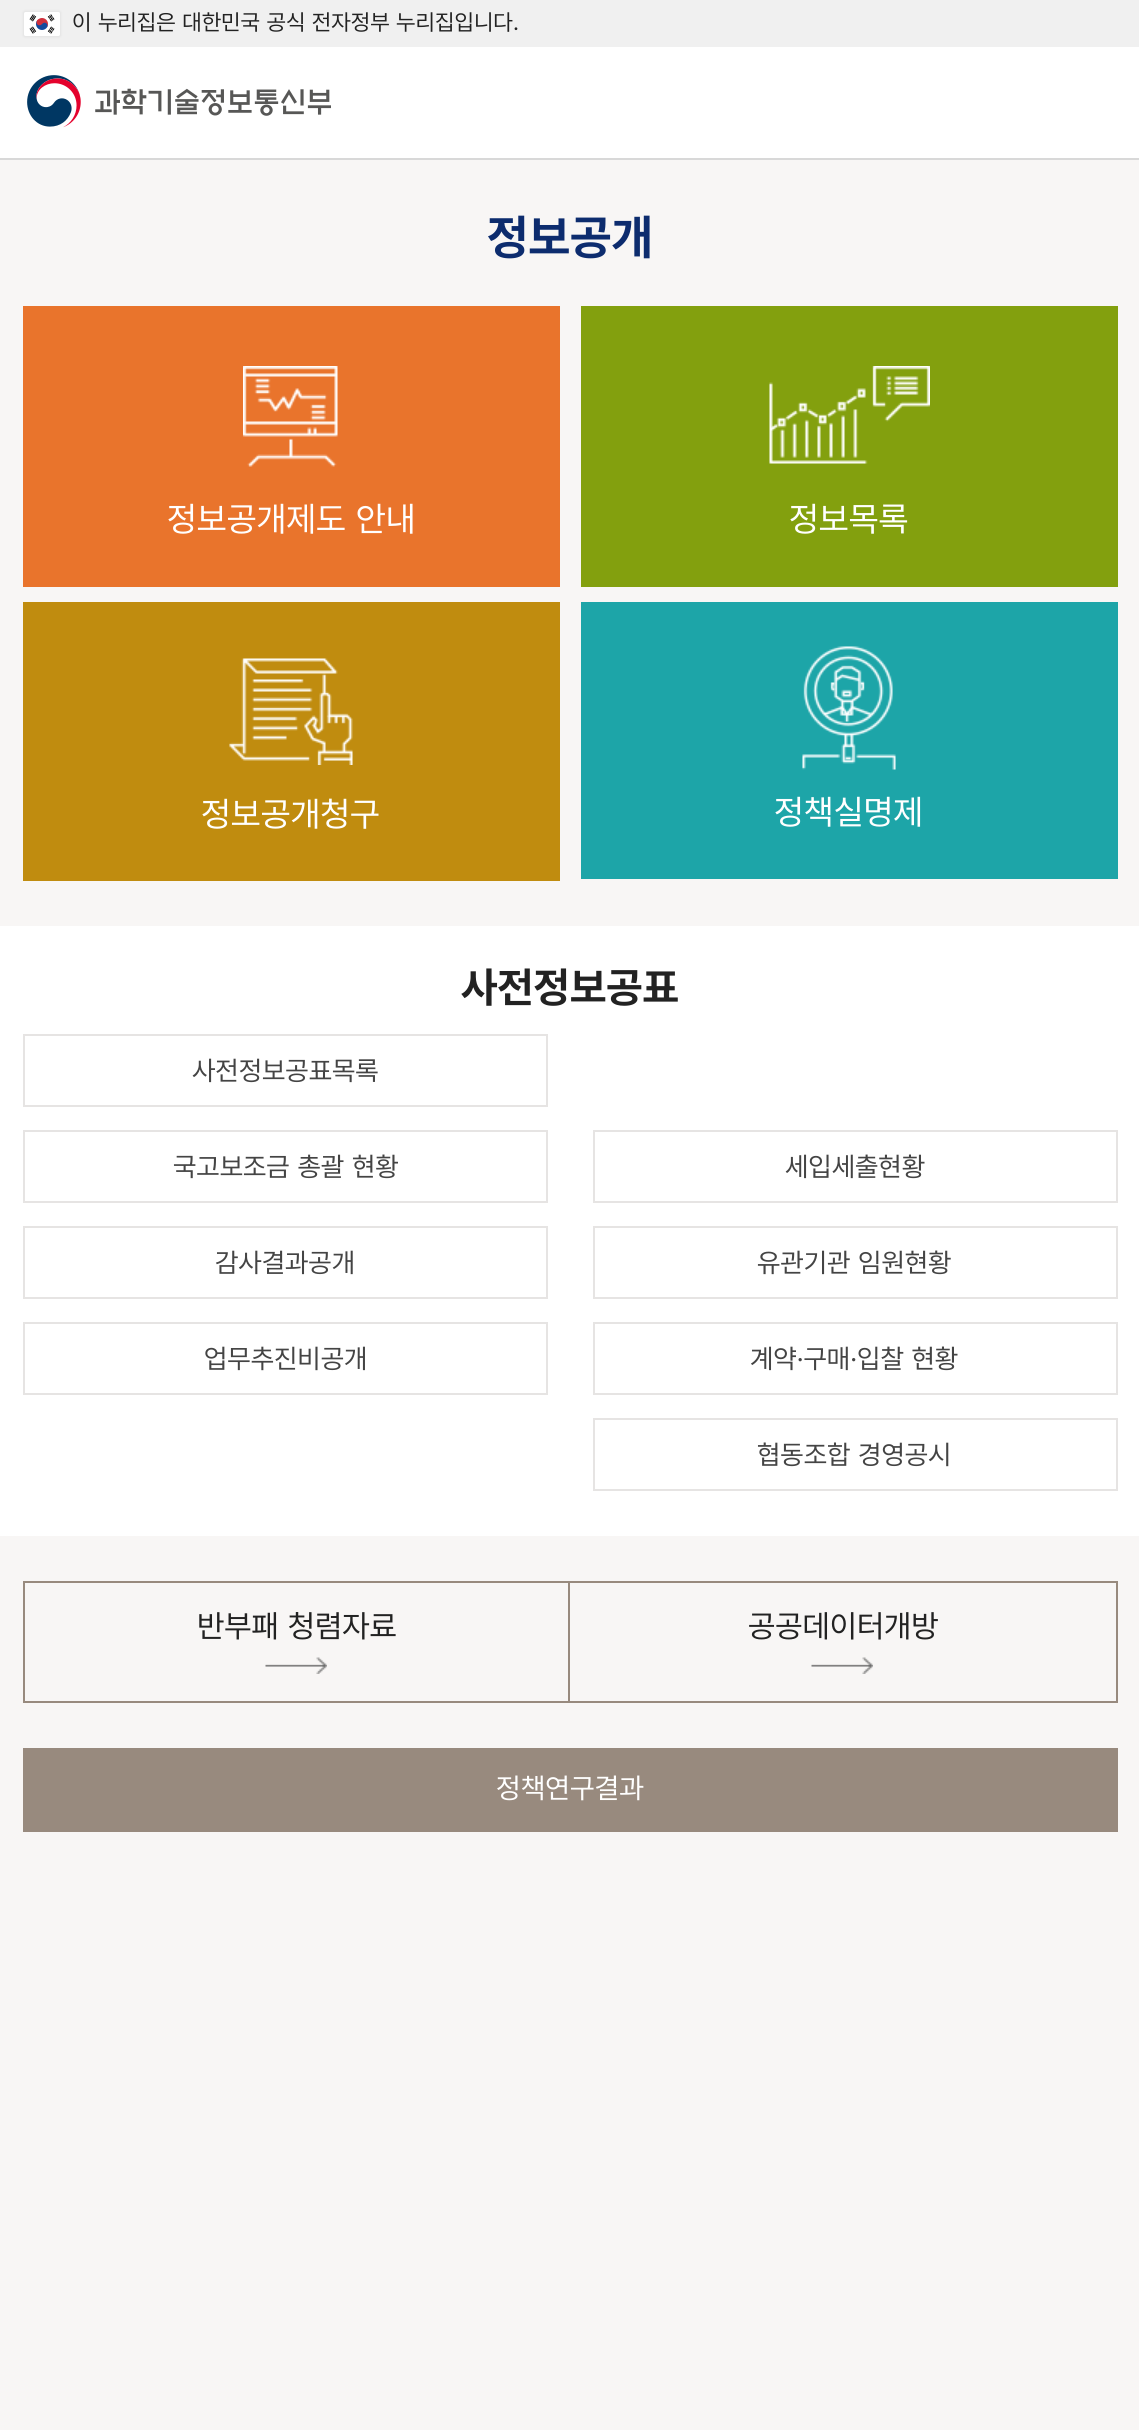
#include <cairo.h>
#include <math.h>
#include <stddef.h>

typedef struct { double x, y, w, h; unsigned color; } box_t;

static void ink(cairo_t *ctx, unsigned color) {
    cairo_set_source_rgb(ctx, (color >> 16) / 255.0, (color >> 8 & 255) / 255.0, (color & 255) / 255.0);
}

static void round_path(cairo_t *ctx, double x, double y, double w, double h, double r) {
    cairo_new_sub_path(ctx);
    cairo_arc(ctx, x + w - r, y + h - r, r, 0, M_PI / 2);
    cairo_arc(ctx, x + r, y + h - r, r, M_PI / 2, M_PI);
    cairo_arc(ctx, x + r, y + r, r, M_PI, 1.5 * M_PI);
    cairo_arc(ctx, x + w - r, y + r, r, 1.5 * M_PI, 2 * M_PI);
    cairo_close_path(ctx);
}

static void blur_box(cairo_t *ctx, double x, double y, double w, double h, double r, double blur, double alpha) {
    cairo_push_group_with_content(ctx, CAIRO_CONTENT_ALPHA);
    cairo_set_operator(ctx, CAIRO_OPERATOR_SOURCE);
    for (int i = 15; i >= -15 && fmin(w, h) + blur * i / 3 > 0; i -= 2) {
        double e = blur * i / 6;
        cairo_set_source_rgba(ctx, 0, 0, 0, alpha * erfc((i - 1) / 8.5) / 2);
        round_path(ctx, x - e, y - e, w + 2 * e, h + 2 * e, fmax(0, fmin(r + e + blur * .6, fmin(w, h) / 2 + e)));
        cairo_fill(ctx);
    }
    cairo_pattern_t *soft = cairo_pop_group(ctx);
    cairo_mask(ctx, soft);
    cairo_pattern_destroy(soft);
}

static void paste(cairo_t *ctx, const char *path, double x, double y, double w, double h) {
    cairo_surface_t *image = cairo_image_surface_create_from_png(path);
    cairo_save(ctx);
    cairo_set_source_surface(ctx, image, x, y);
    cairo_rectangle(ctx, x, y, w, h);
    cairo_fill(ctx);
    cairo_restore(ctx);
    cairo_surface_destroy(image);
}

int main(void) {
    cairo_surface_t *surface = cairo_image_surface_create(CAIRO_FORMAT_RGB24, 1139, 2430);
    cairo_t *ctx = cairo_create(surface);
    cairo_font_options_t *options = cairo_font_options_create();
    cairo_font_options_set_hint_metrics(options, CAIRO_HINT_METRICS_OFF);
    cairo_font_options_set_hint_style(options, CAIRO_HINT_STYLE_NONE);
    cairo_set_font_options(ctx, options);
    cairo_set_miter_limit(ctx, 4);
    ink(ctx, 0xFFFFFF);
    cairo_paint(ctx);
    ink(ctx, 0xD8D8D8);
    cairo_rectangle(ctx, 0, 158, 1139, 2);
    cairo_fill(ctx);
    ink(ctx, 0xF0F0F0);
    cairo_rectangle(ctx, 0, 0, 1139, 47);
    cairo_fill(ctx);
    ink(ctx, 0x000000);
    blur_box(ctx, 24, 12, 36, 24, 0, 1.5, 0.1);
    paste(ctx, "media/1.png", 24, 12, 36, 24);
    cairo_select_font_face(ctx, "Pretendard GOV", CAIRO_FONT_SLANT_NORMAL, CAIRO_FONT_WEIGHT_NORMAL);
    cairo_set_font_size(ctx, 22.5);
    ink(ctx, 0x222222);
    cairo_move_to(ctx, 72, 30);
    cairo_show_text(ctx, "이 누리집은 대한민국 공식 전자정부 누리집입니다.");
    paste(ctx, "media/2.png", 27, 75, 304, 53);
    ink(ctx, 0xF8F6F5);
    cairo_rectangle(ctx, 0, 160, 1139, 2270);
    cairo_fill(ctx);
    cairo_select_font_face(ctx, "Pretendard GOV", CAIRO_FONT_SLANT_NORMAL, CAIRO_FONT_WEIGHT_BOLD);
    cairo_set_font_size(ctx, 48);
    ink(ctx, 0x0D2C6E);
    cairo_move_to(ctx, 487, 254);
    cairo_show_text(ctx, "정보공개");
    ink(ctx, 0xE9742C);
    cairo_rectangle(ctx, 23, 306, 537, 281);
    cairo_fill(ctx);
    paste(ctx, "media/3.png", 243, 366, 95, 101);
    cairo_select_font_face(ctx, "Pretendard GOV", CAIRO_FONT_SLANT_NORMAL, CAIRO_FONT_WEIGHT_NORMAL);
    cairo_set_font_size(ctx, 34.5);
    ink(ctx, 0xFFFFFF);
    cairo_move_to(ctx, 167, 531);
    cairo_show_text(ctx, "정보공개제도 안내");
    ink(ctx, 0x83A00E);
    cairo_rectangle(ctx, 581, 306, 537, 281);
    cairo_fill(ctx);
    paste(ctx, "media/4.png", 769, 366, 161, 98);
    ink(ctx, 0xFFFFFF);
    cairo_move_to(ctx, 789, 531);
    cairo_show_text(ctx, "정보목록");
    ink(ctx, 0xC08C0F);
    cairo_rectangle(ctx, 23, 602, 537, 279);
    cairo_fill(ctx);
    paste(ctx, "media/5.png", 229, 658, 124, 107);
    ink(ctx, 0xFFFFFF);
    cairo_move_to(ctx, 201, 826);
    cairo_show_text(ctx, "정보공개청구");
    ink(ctx, 0x1DA5A8);
    cairo_rectangle(ctx, 581, 602, 537, 277);
    cairo_fill(ctx);
    paste(ctx, "media/6.png", 802, 646, 94, 124);
    ink(ctx, 0xFFFFFF);
    cairo_move_to(ctx, 774, 824);
    cairo_show_text(ctx, "정책실명제");
    cairo_rectangle(ctx, 0, 926, 1139, 610);
    cairo_fill(ctx);
    cairo_select_font_face(ctx, "Pretendard GOV", CAIRO_FONT_SLANT_NORMAL, CAIRO_FONT_WEIGHT_BOLD);
    cairo_set_font_size(ctx, 42);
    ink(ctx, 0x222222);
    cairo_move_to(ctx, 461, 1002);
    cairo_show_text(ctx, "사전정보공표");
    cairo_rectangle(ctx, 24, 1035, 523, 71);
    ink(ctx, 0xE6E4E3);
    cairo_stroke(ctx);
    cairo_select_font_face(ctx, "Pretendard GOV", CAIRO_FONT_SLANT_NORMAL, CAIRO_FONT_WEIGHT_NORMAL);
    cairo_set_font_size(ctx, 27);
    ink(ctx, 0x444444);
    cairo_move_to(ctx, 192, 1080);
    cairo_show_text(ctx, "사전정보공표목록");
    cairo_rectangle(ctx, 24, 1131, 523, 71);
    ink(ctx, 0xE6E4E3);
    cairo_stroke(ctx);
    ink(ctx, 0x444444);
    cairo_move_to(ctx, 173, 1176);
    cairo_show_text(ctx, "국고보조금 총괄 현황");
    cairo_rectangle(ctx, 594, 1131, 523, 71);
    ink(ctx, 0xE6E4E3);
    cairo_stroke(ctx);
    ink(ctx, 0x444444);
    cairo_move_to(ctx, 785, 1176);
    cairo_show_text(ctx, "세입세출현황");
    cairo_rectangle(ctx, 24, 1227, 523, 71);
    ink(ctx, 0xE6E4E3);
    cairo_stroke(ctx);
    ink(ctx, 0x444444);
    cairo_move_to(ctx, 215, 1272);
    cairo_show_text(ctx, "감사결과공개");
    cairo_rectangle(ctx, 594, 1227, 523, 71);
    ink(ctx, 0xE6E4E3);
    cairo_stroke(ctx);
    ink(ctx, 0x444444);
    cairo_move_to(ctx, 757, 1272);
    cairo_show_text(ctx, "유관기관 임원현황");
    cairo_rectangle(ctx, 24, 1323, 523, 71);
    ink(ctx, 0xE6E4E3);
    cairo_stroke(ctx);
    ink(ctx, 0x444444);
    cairo_move_to(ctx, 204, 1368);
    cairo_show_text(ctx, "업무추진비공개");
    cairo_rectangle(ctx, 594, 1323, 523, 71);
    ink(ctx, 0xE6E4E3);
    cairo_stroke(ctx);
    ink(ctx, 0x444444);
    cairo_move_to(ctx, 750, 1368);
    cairo_show_text(ctx, "계약·구매·입찰 현황");
    cairo_rectangle(ctx, 594, 1419, 523, 71);
    ink(ctx, 0xE6E4E3);
    cairo_stroke(ctx);
    ink(ctx, 0x444444);
    cairo_move_to(ctx, 757, 1464);
    cairo_show_text(ctx, "협동조합 경영공시");
    cairo_rectangle(ctx, 24, 1582, 545, 120);
    ink(ctx, 0x988A7E);
    cairo_stroke(ctx);
    cairo_set_font_size(ctx, 31.5);
    ink(ctx, 0x222222);
    cairo_move_to(ctx, 197, 1637);
    cairo_show_text(ctx, "반부패 청렴자료");
    paste(ctx, "media/7.png", 265, 1657, 62, 17);
    {
        static const box_t items[] = {
            {570, 1581, 548, 2, 0x988A7E},
            {1116, 1581, 2, 122, 0x988A7E},
            {570, 1701, 548, 2, 0x988A7E},
        };
        for (size_t i = 0; i < sizeof items / sizeof *items; i++) {
            ink(ctx, items[i].color);
            cairo_rectangle(ctx, items[i].x, items[i].y, items[i].w, items[i].h);
            cairo_fill(ctx);
        }
    }
    ink(ctx, 0x222222);
    cairo_move_to(ctx, 748, 1637);
    cairo_show_text(ctx, "공공데이터개방");
    paste(ctx, "media/7.png", 811, 1657, 62, 17);
    ink(ctx, 0x988A7E);
    cairo_rectangle(ctx, 23, 1748, 1095, 84);
    cairo_fill(ctx);
    cairo_set_font_size(ctx, 28.5);
    ink(ctx, 0xFFFFFF);
    cairo_move_to(ctx, 496, 1798);
    cairo_show_text(ctx, "정책연구결과");
    cairo_surface_write_to_png(surface, "image.png");
    cairo_font_options_destroy(options);
    cairo_destroy(ctx);
    cairo_surface_destroy(surface);
    return 0;
}
